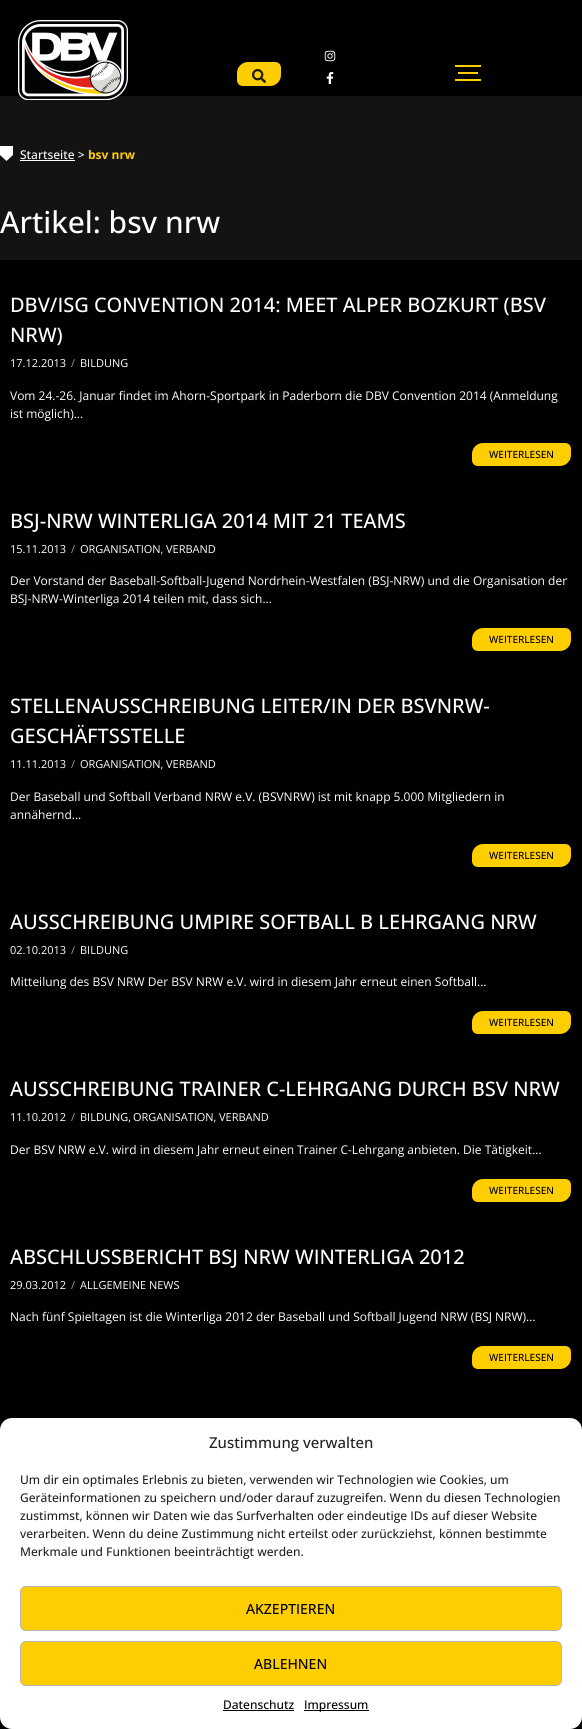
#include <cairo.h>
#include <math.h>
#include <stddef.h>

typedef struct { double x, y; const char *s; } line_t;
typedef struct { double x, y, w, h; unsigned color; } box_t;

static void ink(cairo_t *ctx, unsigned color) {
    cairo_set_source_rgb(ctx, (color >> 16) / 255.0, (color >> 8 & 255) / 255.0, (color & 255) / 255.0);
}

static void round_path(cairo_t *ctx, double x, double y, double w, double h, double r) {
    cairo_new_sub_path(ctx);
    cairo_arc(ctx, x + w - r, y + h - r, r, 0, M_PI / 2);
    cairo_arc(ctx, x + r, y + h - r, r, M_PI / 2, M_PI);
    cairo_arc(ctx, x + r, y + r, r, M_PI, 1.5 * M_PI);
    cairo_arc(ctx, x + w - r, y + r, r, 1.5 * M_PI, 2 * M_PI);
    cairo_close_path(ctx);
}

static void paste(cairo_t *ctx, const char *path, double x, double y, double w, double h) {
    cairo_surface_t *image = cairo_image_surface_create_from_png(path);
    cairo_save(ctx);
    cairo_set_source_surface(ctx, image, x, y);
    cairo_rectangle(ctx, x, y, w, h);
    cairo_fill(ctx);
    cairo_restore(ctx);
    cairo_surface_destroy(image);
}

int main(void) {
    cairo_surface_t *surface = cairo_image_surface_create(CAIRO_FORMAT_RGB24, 582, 1729);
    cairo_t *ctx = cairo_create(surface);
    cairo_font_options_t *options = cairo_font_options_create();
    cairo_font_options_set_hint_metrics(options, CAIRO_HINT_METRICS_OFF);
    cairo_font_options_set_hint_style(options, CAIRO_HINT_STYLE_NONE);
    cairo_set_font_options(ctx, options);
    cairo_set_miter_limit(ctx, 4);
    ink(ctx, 0x000000);
    cairo_paint(ctx);
    ink(ctx, 0x131313);
    cairo_rectangle(ctx, 0, 96, 582, 164);
    cairo_fill(ctx);
    paste(ctx, "media/1.png", 18, 20, 110, 80);
    ink(ctx, 0xFFCE00);
    cairo_new_path(ctx);
    cairo_move_to(ctx, 248, 62);
    cairo_line_to(ctx, 275, 62);
    cairo_curve_to(ctx, 278.5, 62, 281, 64.5, 281, 68);
    cairo_line_to(ctx, 281, 75);
    cairo_curve_to(ctx, 281, 81, 276, 86, 270, 86);
    cairo_line_to(ctx, 243, 86);
    cairo_curve_to(ctx, 239.5, 86, 237, 83.5, 237, 80);
    cairo_line_to(ctx, 237, 73);
    cairo_curve_to(ctx, 237, 67, 242, 62, 248, 62);
    cairo_close_path(ctx);
    cairo_fill(ctx);
    paste(ctx, "media/2.png", 252, 69, 14, 14);
    paste(ctx, "media/3.png", 324, 50, 12, 12);
    paste(ctx, "media/4.png", 326, 72, 8, 12);
    {
        static const box_t items[] = {
            {455, 65, 26, 2, 0xFFCE00},
            {458, 72, 20, 2, 0xFFCE00},
            {455, 79, 26, 2, 0xFFCE00},
        };
        for (size_t i = 0; i < sizeof items / sizeof *items; i++) {
            ink(ctx, items[i].color);
            cairo_rectangle(ctx, items[i].x, items[i].y, items[i].w, items[i].h);
            cairo_fill(ctx);
        }
    }
    paste(ctx, "media/5.png", 0, 146, 13, 15);
    cairo_select_font_face(ctx, "Open Sans Medium", CAIRO_FONT_SLANT_NORMAL, CAIRO_FONT_WEIGHT_NORMAL);
    cairo_set_font_size(ctx, 12);
    ink(ctx, 0xFFFFFF);
    cairo_move_to(ctx, 20, 159);
    cairo_show_text(ctx, "Startseite >");
    cairo_rectangle(ctx, 20, 160, 55, 1);
    cairo_fill(ctx);
    cairo_select_font_face(ctx, "Open Sans", CAIRO_FONT_SLANT_NORMAL, CAIRO_FONT_WEIGHT_BOLD);
    ink(ctx, 0xFFCE00);
    cairo_move_to(ctx, 88, 159);
    cairo_show_text(ctx, "bsv nrw");
    cairo_select_font_face(ctx, "Open Sans Medium", CAIRO_FONT_SLANT_NORMAL, CAIRO_FONT_WEIGHT_NORMAL);
    cairo_set_font_size(ctx, 30);
    ink(ctx, 0xFFFFFF);
    cairo_move_to(ctx, 0, 233);
    cairo_show_text(ctx, "Artikel: bsv nrw");
    cairo_set_font_size(ctx, 20);
    cairo_move_to(ctx, 10, 312);
    cairo_show_text(ctx, "DBV/ISG CONVENTION 2014: MEET ALPER BOZKURT (BSV");
    cairo_move_to(ctx, 10, 342);
    cairo_show_text(ctx, "NRW)");
    cairo_select_font_face(ctx, "Open Sans", CAIRO_FONT_SLANT_NORMAL, CAIRO_FONT_WEIGHT_NORMAL);
    cairo_set_font_size(ctx, 11);
    cairo_move_to(ctx, 10, 367);
    cairo_show_text(ctx, "17.12.2013");
    ink(ctx, 0x9C9C9C);
    cairo_move_to(ctx, 71, 367);
    cairo_show_text(ctx, "/");
    ink(ctx, 0xFFFFFF);
    cairo_move_to(ctx, 80, 367);
    cairo_show_text(ctx, "BILDUNG");
    cairo_set_font_size(ctx, 12);
    cairo_move_to(ctx, 10, 400);
    cairo_show_text(ctx, "Vom 24.-26. Januar findet im Ahorn-Sportpark in Paderborn die DBV Convention 2014 (Anmeldung");
    cairo_move_to(ctx, 10, 418);
    cairo_show_text(ctx, "ist möglich)...");
    ink(ctx, 0xFFCE00);
    cairo_new_path(ctx);
    cairo_move_to(ctx, 483, 443);
    cairo_line_to(ctx, 565, 443);
    cairo_curve_to(ctx, 568.5, 443, 571, 445.5, 571, 449);
    cairo_line_to(ctx, 571, 455);
    cairo_curve_to(ctx, 571, 461, 566, 466, 560, 466);
    cairo_line_to(ctx, 478, 466);
    cairo_curve_to(ctx, 474.5, 466, 472, 463.5, 472, 460);
    cairo_line_to(ctx, 472, 454);
    cairo_curve_to(ctx, 472, 448, 477, 443, 483, 443);
    cairo_close_path(ctx);
    cairo_fill(ctx);
    cairo_select_font_face(ctx, "Open Sans Medium", CAIRO_FONT_SLANT_NORMAL, CAIRO_FONT_WEIGHT_NORMAL);
    cairo_set_font_size(ctx, 10);
    ink(ctx, 0x000000);
    cairo_move_to(ctx, 489, 458);
    cairo_show_text(ctx, "WEITERLESEN");
    cairo_set_font_size(ctx, 20);
    ink(ctx, 0xFFFFFF);
    cairo_move_to(ctx, 10, 528);
    cairo_show_text(ctx, "BSJ-NRW WINTERLIGA 2014 MIT 21 TEAMS");
    cairo_select_font_face(ctx, "Open Sans", CAIRO_FONT_SLANT_NORMAL, CAIRO_FONT_WEIGHT_NORMAL);
    cairo_set_font_size(ctx, 11);
    cairo_move_to(ctx, 10, 553);
    cairo_show_text(ctx, "15.11.2013");
    ink(ctx, 0x9C9C9C);
    cairo_move_to(ctx, 71, 553);
    cairo_show_text(ctx, "/");
    ink(ctx, 0xFFFFFF);
    cairo_move_to(ctx, 80, 553);
    cairo_show_text(ctx, "ORGANISATION,");
    cairo_move_to(ctx, 166, 553);
    cairo_show_text(ctx, "VERBAND");
    cairo_set_font_size(ctx, 12);
    cairo_move_to(ctx, 10, 585);
    cairo_show_text(ctx, "Der Vorstand der Baseball-Softball-Jugend Nordrhein-Westfalen (BSJ-NRW) und die Organisation der");
    cairo_move_to(ctx, 10, 603);
    cairo_show_text(ctx, "BSJ-NRW-Winterliga 2014 teilen mit, dass sich...");
    ink(ctx, 0xFFCE00);
    cairo_new_path(ctx);
    cairo_move_to(ctx, 483, 628);
    cairo_line_to(ctx, 565, 628);
    cairo_curve_to(ctx, 568.5, 628, 571, 630.5, 571, 634);
    cairo_line_to(ctx, 571, 640);
    cairo_curve_to(ctx, 571, 646, 566, 651, 560, 651);
    cairo_line_to(ctx, 478, 651);
    cairo_curve_to(ctx, 474.5, 651, 472, 648.5, 472, 645);
    cairo_line_to(ctx, 472, 639);
    cairo_curve_to(ctx, 472, 633, 477, 628, 483, 628);
    cairo_close_path(ctx);
    cairo_fill(ctx);
    cairo_select_font_face(ctx, "Open Sans Medium", CAIRO_FONT_SLANT_NORMAL, CAIRO_FONT_WEIGHT_NORMAL);
    cairo_set_font_size(ctx, 10);
    ink(ctx, 0x000000);
    cairo_move_to(ctx, 489, 643);
    cairo_show_text(ctx, "WEITERLESEN");
    cairo_set_font_size(ctx, 20);
    ink(ctx, 0xFFFFFF);
    cairo_move_to(ctx, 10, 713);
    cairo_show_text(ctx, "STELLENAUSSCHREIBUNG LEITER/IN DER BSVNRW-");
    cairo_move_to(ctx, 10, 743);
    cairo_show_text(ctx, "GESCHÄFTSSTELLE");
    cairo_select_font_face(ctx, "Open Sans", CAIRO_FONT_SLANT_NORMAL, CAIRO_FONT_WEIGHT_NORMAL);
    cairo_set_font_size(ctx, 11);
    cairo_move_to(ctx, 10, 768);
    cairo_show_text(ctx, "11.11.2013");
    ink(ctx, 0x9C9C9C);
    cairo_move_to(ctx, 71, 768);
    cairo_show_text(ctx, "/");
    ink(ctx, 0xFFFFFF);
    cairo_move_to(ctx, 80, 768);
    cairo_show_text(ctx, "ORGANISATION,");
    cairo_move_to(ctx, 166, 768);
    cairo_show_text(ctx, "VERBAND");
    cairo_set_font_size(ctx, 12);
    cairo_move_to(ctx, 10, 801);
    cairo_show_text(ctx, "Der Baseball und Softball Verband NRW e.V. (BSVNRW) ist mit knapp 5.000 Mitgliedern in");
    cairo_move_to(ctx, 10, 819);
    cairo_show_text(ctx, "annähernd...");
    ink(ctx, 0xFFCE00);
    cairo_new_path(ctx);
    cairo_move_to(ctx, 483, 844);
    cairo_line_to(ctx, 565, 844);
    cairo_curve_to(ctx, 568.5, 844, 571, 846.5, 571, 850);
    cairo_line_to(ctx, 571, 856);
    cairo_curve_to(ctx, 571, 862, 566, 867, 560, 867);
    cairo_line_to(ctx, 478, 867);
    cairo_curve_to(ctx, 474.5, 867, 472, 864.5, 472, 861);
    cairo_line_to(ctx, 472, 855);
    cairo_curve_to(ctx, 472, 849, 477, 844, 483, 844);
    cairo_close_path(ctx);
    cairo_fill(ctx);
    cairo_select_font_face(ctx, "Open Sans Medium", CAIRO_FONT_SLANT_NORMAL, CAIRO_FONT_WEIGHT_NORMAL);
    cairo_set_font_size(ctx, 10);
    ink(ctx, 0x000000);
    cairo_move_to(ctx, 489, 859);
    cairo_show_text(ctx, "WEITERLESEN");
    cairo_set_font_size(ctx, 20);
    ink(ctx, 0xFFFFFF);
    cairo_move_to(ctx, 10, 929);
    cairo_show_text(ctx, "AUSSCHREIBUNG UMPIRE SOFTBALL B LEHRGANG NRW");
    cairo_select_font_face(ctx, "Open Sans", CAIRO_FONT_SLANT_NORMAL, CAIRO_FONT_WEIGHT_NORMAL);
    cairo_set_font_size(ctx, 11);
    cairo_move_to(ctx, 10, 954);
    cairo_show_text(ctx, "02.10.2013");
    ink(ctx, 0x9C9C9C);
    cairo_move_to(ctx, 71, 954);
    cairo_show_text(ctx, "/");
    ink(ctx, 0xFFFFFF);
    cairo_move_to(ctx, 80, 954);
    cairo_show_text(ctx, "BILDUNG");
    cairo_set_font_size(ctx, 12);
    cairo_move_to(ctx, 10, 986);
    cairo_show_text(ctx, "Mitteilung des BSV NRW Der BSV NRW e.V. wird in diesem Jahr erneut einen Softball...");
    ink(ctx, 0xFFCE00);
    cairo_new_path(ctx);
    cairo_move_to(ctx, 483, 1011);
    cairo_line_to(ctx, 565, 1011);
    cairo_curve_to(ctx, 568.5, 1011, 571, 1013.5, 571, 1017);
    cairo_line_to(ctx, 571, 1023);
    cairo_curve_to(ctx, 571, 1029, 566, 1034, 560, 1034);
    cairo_line_to(ctx, 478, 1034);
    cairo_curve_to(ctx, 474.5, 1034, 472, 1031.5, 472, 1028);
    cairo_line_to(ctx, 472, 1022);
    cairo_curve_to(ctx, 472, 1016, 477, 1011, 483, 1011);
    cairo_close_path(ctx);
    cairo_fill(ctx);
    cairo_select_font_face(ctx, "Open Sans Medium", CAIRO_FONT_SLANT_NORMAL, CAIRO_FONT_WEIGHT_NORMAL);
    cairo_set_font_size(ctx, 10);
    ink(ctx, 0x000000);
    cairo_move_to(ctx, 489, 1026);
    cairo_show_text(ctx, "WEITERLESEN");
    cairo_set_font_size(ctx, 20);
    ink(ctx, 0xFFFFFF);
    cairo_move_to(ctx, 10, 1096);
    cairo_show_text(ctx, "AUSSCHREIBUNG TRAINER C-LEHRGANG DURCH BSV NRW");
    cairo_select_font_face(ctx, "Open Sans", CAIRO_FONT_SLANT_NORMAL, CAIRO_FONT_WEIGHT_NORMAL);
    cairo_set_font_size(ctx, 11);
    cairo_move_to(ctx, 10, 1121);
    cairo_show_text(ctx, "11.10.2012");
    ink(ctx, 0x9C9C9C);
    cairo_move_to(ctx, 71, 1121);
    cairo_show_text(ctx, "/");
    ink(ctx, 0xFFFFFF);
    {
        static const line_t items[] = {
            {80, 1121, "BILDUNG,"},
            {133, 1121, "ORGANISATION,"},
            {219, 1121, "VERBAND"},
        };
        for (size_t i = 0; i < sizeof items / sizeof *items; i++) {
            cairo_move_to(ctx, items[i].x, items[i].y);
            cairo_show_text(ctx, items[i].s);
        }
    }
    cairo_set_font_size(ctx, 12);
    cairo_move_to(ctx, 10, 1154);
    cairo_show_text(ctx, "Der BSV NRW e.V. wird in diesem Jahr erneut einen Trainer C-Lehrgang anbieten. Die Tätigkeit...");
    ink(ctx, 0xFFCE00);
    cairo_new_path(ctx);
    cairo_move_to(ctx, 483, 1179);
    cairo_line_to(ctx, 565, 1179);
    cairo_curve_to(ctx, 568.5, 1179, 571, 1181.5, 571, 1185);
    cairo_line_to(ctx, 571, 1191);
    cairo_curve_to(ctx, 571, 1197, 566, 1202, 560, 1202);
    cairo_line_to(ctx, 478, 1202);
    cairo_curve_to(ctx, 474.5, 1202, 472, 1199.5, 472, 1196);
    cairo_line_to(ctx, 472, 1190);
    cairo_curve_to(ctx, 472, 1184, 477, 1179, 483, 1179);
    cairo_close_path(ctx);
    cairo_fill(ctx);
    cairo_select_font_face(ctx, "Open Sans Medium", CAIRO_FONT_SLANT_NORMAL, CAIRO_FONT_WEIGHT_NORMAL);
    cairo_set_font_size(ctx, 10);
    ink(ctx, 0x000000);
    cairo_move_to(ctx, 489, 1194);
    cairo_show_text(ctx, "WEITERLESEN");
    cairo_set_font_size(ctx, 20);
    ink(ctx, 0xFFFFFF);
    cairo_move_to(ctx, 10, 1264);
    cairo_show_text(ctx, "ABSCHLUSSBERICHT BSJ NRW WINTERLIGA 2012");
    cairo_select_font_face(ctx, "Open Sans", CAIRO_FONT_SLANT_NORMAL, CAIRO_FONT_WEIGHT_NORMAL);
    cairo_set_font_size(ctx, 11);
    cairo_move_to(ctx, 10, 1289);
    cairo_show_text(ctx, "29.03.2012");
    ink(ctx, 0x9C9C9C);
    cairo_move_to(ctx, 71, 1289);
    cairo_show_text(ctx, "/");
    ink(ctx, 0xFFFFFF);
    cairo_move_to(ctx, 80, 1289);
    cairo_show_text(ctx, "ALLGEMEINE NEWS");
    cairo_set_font_size(ctx, 12);
    cairo_move_to(ctx, 10, 1321);
    cairo_show_text(ctx, "Nach fünf Spieltagen ist die Winterliga 2012 der Baseball und Softball Jugend NRW (BSJ NRW)...");
    ink(ctx, 0xFFCE00);
    cairo_new_path(ctx);
    cairo_move_to(ctx, 483, 1346);
    cairo_line_to(ctx, 565, 1346);
    cairo_curve_to(ctx, 568.5, 1346, 571, 1348.5, 571, 1352);
    cairo_line_to(ctx, 571, 1358);
    cairo_curve_to(ctx, 571, 1364, 566, 1369, 560, 1369);
    cairo_line_to(ctx, 478, 1369);
    cairo_curve_to(ctx, 474.5, 1369, 472, 1366.5, 472, 1363);
    cairo_line_to(ctx, 472, 1357);
    cairo_curve_to(ctx, 472, 1351, 477, 1346, 483, 1346);
    cairo_close_path(ctx);
    cairo_fill(ctx);
    cairo_select_font_face(ctx, "Open Sans Medium", CAIRO_FONT_SLANT_NORMAL, CAIRO_FONT_WEIGHT_NORMAL);
    cairo_set_font_size(ctx, 10);
    ink(ctx, 0x000000);
    cairo_move_to(ctx, 489, 1361);
    cairo_show_text(ctx, "WEITERLESEN");
    ink(ctx, 0xFFFFFF);
    round_path(ctx, 0, 1418, 582, 311, 12);
    cairo_fill(ctx);
    cairo_set_font_size(ctx, 15);
    ink(ctx, 0x222222);
    cairo_move_to(ctx, 209, 1448);
    cairo_show_text(ctx, "Zustimmung verwalten");
    cairo_set_font_size(ctx, 12);
    {
        static const line_t items[] = {
            {20, 1484, "Um dir ein optimales Erlebnis zu bieten, verwenden wir Technologien wie Cookies, um"},
            {20, 1502, "Geräteinformationen zu speichern und/oder darauf zuzugreifen. Wenn du diesen Technologien"},
            {20, 1520, "zustimmst, können wir Daten wie das Surfverhalten oder eindeutige IDs auf dieser Website"},
            {20, 1538, "verarbeiten. Wenn du deine Zustimmung nicht erteilst oder zurückziehst, können bestimmte"},
            {20, 1556, "Merkmale und Funktionen beeinträchtigt werden."},
        };
        for (size_t i = 0; i < sizeof items / sizeof *items; i++) {
            cairo_move_to(ctx, items[i].x, items[i].y);
            cairo_show_text(ctx, items[i].s);
        }
    }
    ink(ctx, 0xFFCE00);
    round_path(ctx, 20.5, 1586.5, 541, 44, 5.5);
    cairo_fill_preserve(ctx);
    ink(ctx, 0xB4B4B4);
    cairo_set_line_width(ctx, 1);
    cairo_stroke(ctx);
    cairo_set_font_size(ctx, 14);
    ink(ctx, 0x000000);
    cairo_move_to(ctx, 246, 1614);
    cairo_show_text(ctx, "AKZEPTIEREN");
    ink(ctx, 0xFFCE00);
    round_path(ctx, 20.5, 1641.5, 541, 44, 5.5);
    cairo_fill_preserve(ctx);
    ink(ctx, 0xB4B4B4);
    cairo_stroke(ctx);
    ink(ctx, 0x000000);
    cairo_move_to(ctx, 254, 1669);
    cairo_show_text(ctx, "ABLEHNEN");
    cairo_set_font_size(ctx, 12);
    cairo_move_to(ctx, 223, 1709);
    cairo_show_text(ctx, "Datenschutz");
    cairo_rectangle(ctx, 223, 1710, 71, 1);
    cairo_fill(ctx);
    cairo_rectangle(ctx, 304, 1710, 65, 1);
    cairo_fill(ctx);
    cairo_move_to(ctx, 304, 1709);
    cairo_show_text(ctx, "Impressum");
    cairo_surface_write_to_png(surface, "image.png");
    cairo_font_options_destroy(options);
    cairo_destroy(ctx);
    cairo_surface_destroy(surface);
    return 0;
}
